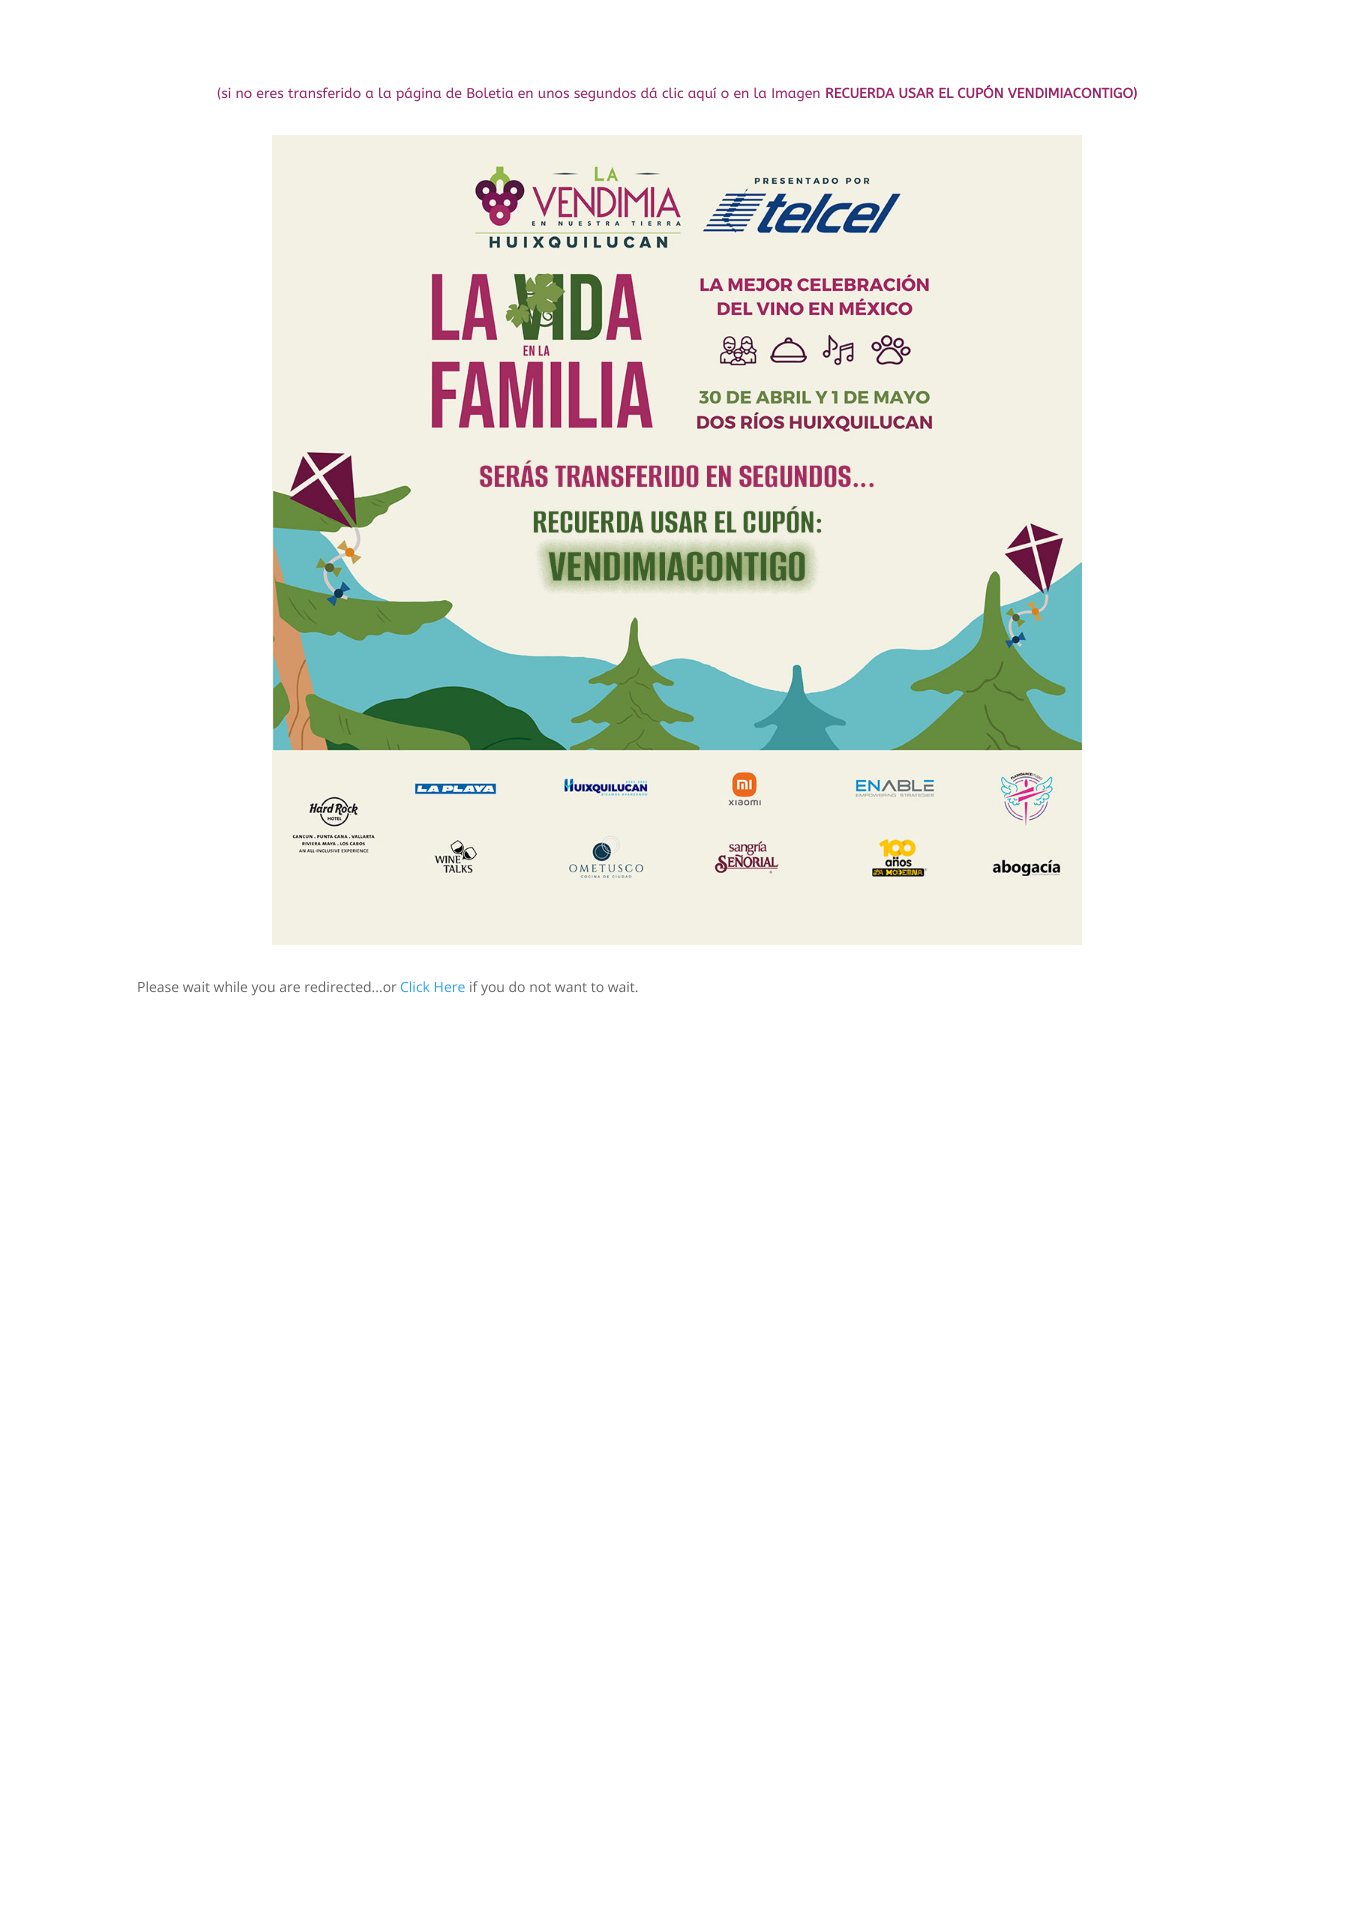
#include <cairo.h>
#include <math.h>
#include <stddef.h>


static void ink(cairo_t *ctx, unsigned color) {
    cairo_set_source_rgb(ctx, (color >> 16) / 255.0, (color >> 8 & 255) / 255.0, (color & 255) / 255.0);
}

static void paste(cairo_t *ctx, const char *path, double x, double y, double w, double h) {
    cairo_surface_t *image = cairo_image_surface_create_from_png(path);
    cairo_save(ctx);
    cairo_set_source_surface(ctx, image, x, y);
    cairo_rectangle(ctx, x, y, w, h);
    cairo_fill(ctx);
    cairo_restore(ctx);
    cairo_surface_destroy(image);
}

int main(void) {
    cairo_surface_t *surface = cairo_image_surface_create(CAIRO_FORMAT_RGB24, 1354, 1929);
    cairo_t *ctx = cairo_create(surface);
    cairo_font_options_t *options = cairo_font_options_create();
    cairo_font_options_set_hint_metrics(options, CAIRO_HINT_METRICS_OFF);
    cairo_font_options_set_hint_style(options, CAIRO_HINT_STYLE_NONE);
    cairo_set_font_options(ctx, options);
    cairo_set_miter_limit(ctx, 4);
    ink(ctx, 0xFFFFFF);
    cairo_paint(ctx);
    cairo_select_font_face(ctx, "ABeeZee", CAIRO_FONT_SLANT_NORMAL, CAIRO_FONT_WEIGHT_NORMAL);
    cairo_set_font_size(ctx, 14);
    ink(ctx, 0x992367);
    cairo_move_to(ctx, 217, 98);
    cairo_show_text(ctx, "(si no eres transferido a la página de Boletia en unos segundos dá clic aquí o en la Imagen");
    cairo_select_font_face(ctx, "ABeeZee", CAIRO_FONT_SLANT_NORMAL, CAIRO_FONT_WEIGHT_BOLD);
    cairo_move_to(ctx, 825, 98);
    cairo_show_text(ctx, "RECUERDA USAR EL CUPÓN VENDIMIACONTIGO)");
    paste(ctx, "media/1.png", 272, 135, 810, 810);
    cairo_select_font_face(ctx, "Open Sans", CAIRO_FONT_SLANT_NORMAL, CAIRO_FONT_WEIGHT_NORMAL);
    ink(ctx, 0x666666);
    cairo_move_to(ctx, 137, 992);
    cairo_show_text(ctx, "Please wait while you are redirected...or");
    ink(ctx, 0x2EA3F2);
    cairo_move_to(ctx, 400, 992);
    cairo_show_text(ctx, "Click Here");
    ink(ctx, 0x666666);
    cairo_move_to(ctx, 469, 992);
    cairo_show_text(ctx, "if you do not want to wait.");
    cairo_surface_write_to_png(surface, "image.png");
    cairo_font_options_destroy(options);
    cairo_destroy(ctx);
    cairo_surface_destroy(surface);
    return 0;
}
